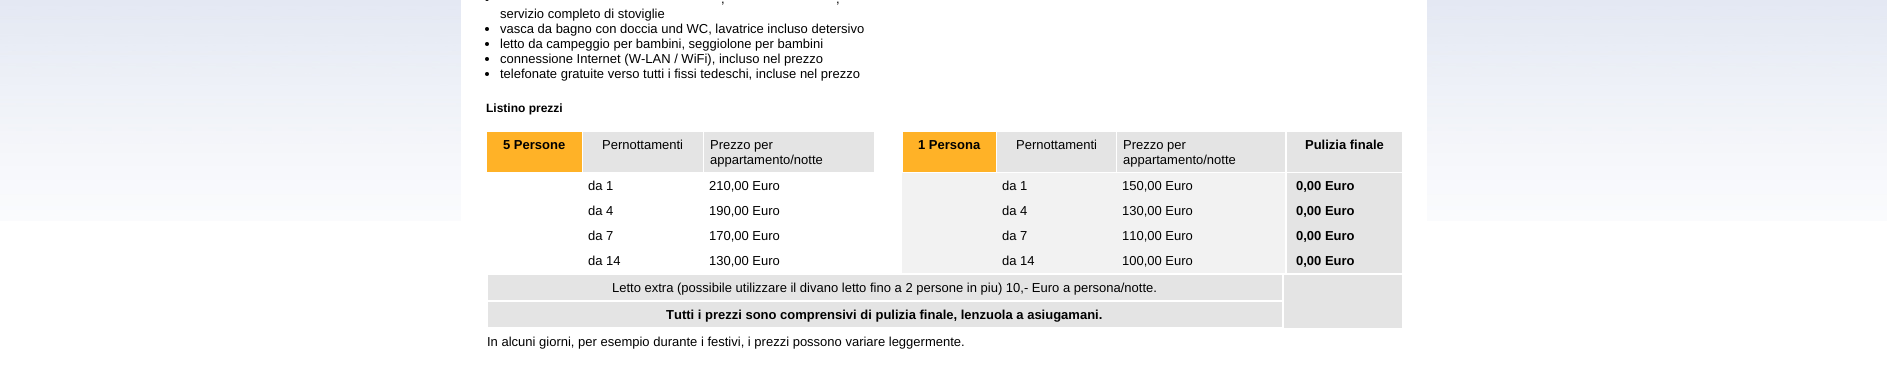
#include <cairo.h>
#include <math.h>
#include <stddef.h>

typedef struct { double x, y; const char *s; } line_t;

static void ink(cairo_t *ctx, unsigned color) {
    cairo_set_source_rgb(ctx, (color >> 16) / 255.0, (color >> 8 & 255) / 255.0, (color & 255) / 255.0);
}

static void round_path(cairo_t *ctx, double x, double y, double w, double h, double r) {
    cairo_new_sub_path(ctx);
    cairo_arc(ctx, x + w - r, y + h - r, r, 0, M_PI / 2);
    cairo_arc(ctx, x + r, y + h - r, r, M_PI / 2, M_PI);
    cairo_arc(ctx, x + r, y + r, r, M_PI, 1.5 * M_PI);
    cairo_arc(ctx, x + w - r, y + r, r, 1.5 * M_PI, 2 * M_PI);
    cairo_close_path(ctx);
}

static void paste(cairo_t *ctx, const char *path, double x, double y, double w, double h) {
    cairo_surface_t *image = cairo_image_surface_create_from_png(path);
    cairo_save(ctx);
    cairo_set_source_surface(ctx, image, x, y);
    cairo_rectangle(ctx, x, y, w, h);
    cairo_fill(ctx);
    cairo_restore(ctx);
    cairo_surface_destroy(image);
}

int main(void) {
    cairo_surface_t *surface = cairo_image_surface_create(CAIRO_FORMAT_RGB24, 1887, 367);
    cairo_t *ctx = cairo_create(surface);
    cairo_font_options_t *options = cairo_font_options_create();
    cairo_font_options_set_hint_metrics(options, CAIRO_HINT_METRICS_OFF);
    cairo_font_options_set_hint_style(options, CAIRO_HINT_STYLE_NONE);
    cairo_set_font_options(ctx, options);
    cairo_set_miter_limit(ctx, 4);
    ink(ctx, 0xFFFFFF);
    cairo_paint(ctx);
    paste(ctx, "media/1.png", 0, 0, 1887, 221);
    ink(ctx, 0xFFFFFF);
    cairo_rectangle(ctx, 461, 0, 966, 221);
    cairo_fill(ctx);
    ink(ctx, 0x000000);
    round_path(ctx, 485, -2, 4, 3, 2);
    cairo_fill(ctx);
    cairo_select_font_face(ctx, "Liberation Sans", CAIRO_FONT_SLANT_NORMAL, CAIRO_FONT_WEIGHT_NORMAL);
    cairo_set_font_size(ctx, 13);
    {
        static const line_t items[] = {
            {721, 3, ","},
            {836, 3, ","},
            {500, 18, "servizio completo di stoviglie"},
        };
        for (size_t i = 0; i < sizeof items / sizeof *items; i++) {
            cairo_move_to(ctx, items[i].x, items[i].y);
            cairo_show_text(ctx, items[i].s);
        }
    }
    cairo_new_path(ctx);
    cairo_arc(ctx, 487, 29, 2, 0, 2 * M_PI);
    cairo_fill(ctx);
    cairo_move_to(ctx, 500, 33);
    cairo_show_text(ctx, "vasca da bagno con doccia und WC, lavatrice incluso detersivo");
    cairo_new_path(ctx);
    cairo_arc(ctx, 487, 44, 2, 0, 2 * M_PI);
    cairo_fill(ctx);
    cairo_move_to(ctx, 500, 48);
    cairo_show_text(ctx, "letto da campeggio per bambini, seggiolone per bambini");
    cairo_new_path(ctx);
    cairo_arc(ctx, 487, 59, 2, 0, 2 * M_PI);
    cairo_fill(ctx);
    cairo_move_to(ctx, 500, 63);
    cairo_show_text(ctx, "connessione Internet (W-LAN / WiFi), incluso nel prezzo");
    cairo_new_path(ctx);
    cairo_arc(ctx, 487, 74, 2, 0, 2 * M_PI);
    cairo_fill(ctx);
    cairo_move_to(ctx, 500, 78);
    cairo_show_text(ctx, "telefonate gratuite verso tutti i fissi tedeschi, incluse nel prezzo");
    cairo_select_font_face(ctx, "Liberation Sans", CAIRO_FONT_SLANT_NORMAL, CAIRO_FONT_WEIGHT_BOLD);
    cairo_set_font_size(ctx, 12);
    cairo_move_to(ctx, 486, 112);
    cairo_show_text(ctx, "Listino prezzi");
    ink(ctx, 0xFFB227);
    cairo_rectangle(ctx, 487, 132, 95, 40);
    cairo_fill(ctx);
    cairo_set_font_size(ctx, 13);
    ink(ctx, 0x000000);
    cairo_move_to(ctx, 503, 149);
    cairo_show_text(ctx, "5 Persone");
    ink(ctx, 0xE4E4E4);
    cairo_rectangle(ctx, 583, 132, 120, 40);
    cairo_fill(ctx);
    cairo_select_font_face(ctx, "Liberation Sans", CAIRO_FONT_SLANT_NORMAL, CAIRO_FONT_WEIGHT_NORMAL);
    ink(ctx, 0x000000);
    cairo_move_to(ctx, 602, 149);
    cairo_show_text(ctx, "Pernottamenti");
    ink(ctx, 0xE4E4E4);
    cairo_rectangle(ctx, 704, 132, 170, 40);
    cairo_fill(ctx);
    ink(ctx, 0x000000);
    {
        static const line_t items[] = {
            {710, 149, "Prezzo per"},
            {710, 164, "appartamento/notte"},
            {588, 190, "da 1"},
            {709, 190, "210,00 Euro"},
            {588, 215, "da 4"},
            {709, 215, "190,00 Euro"},
            {588, 240, "da 7"},
            {709, 240, "170,00 Euro"},
            {588, 265, "da 14"},
            {709, 265, "130,00 Euro"},
        };
        for (size_t i = 0; i < sizeof items / sizeof *items; i++) {
            cairo_move_to(ctx, items[i].x, items[i].y);
            cairo_show_text(ctx, items[i].s);
        }
    }
    ink(ctx, 0xFFB227);
    cairo_rectangle(ctx, 903, 132, 93, 40);
    cairo_fill(ctx);
    cairo_select_font_face(ctx, "Liberation Sans", CAIRO_FONT_SLANT_NORMAL, CAIRO_FONT_WEIGHT_BOLD);
    ink(ctx, 0x000000);
    cairo_move_to(ctx, 918, 149);
    cairo_show_text(ctx, "1 Persona");
    ink(ctx, 0xE4E4E4);
    cairo_rectangle(ctx, 997, 132, 119, 40);
    cairo_fill(ctx);
    cairo_select_font_face(ctx, "Liberation Sans", CAIRO_FONT_SLANT_NORMAL, CAIRO_FONT_WEIGHT_NORMAL);
    ink(ctx, 0x000000);
    cairo_move_to(ctx, 1016, 149);
    cairo_show_text(ctx, "Pernottamenti");
    ink(ctx, 0xE4E4E4);
    cairo_rectangle(ctx, 1117, 132, 168, 40);
    cairo_fill(ctx);
    ink(ctx, 0x000000);
    cairo_move_to(ctx, 1123, 149);
    cairo_show_text(ctx, "Prezzo per");
    cairo_move_to(ctx, 1123, 164);
    cairo_show_text(ctx, "appartamento/notte");
    ink(ctx, 0xE4E4E4);
    cairo_rectangle(ctx, 1287, 132, 115, 40);
    cairo_fill(ctx);
    cairo_select_font_face(ctx, "Liberation Sans", CAIRO_FONT_SLANT_NORMAL, CAIRO_FONT_WEIGHT_BOLD);
    ink(ctx, 0x000000);
    cairo_move_to(ctx, 1305, 149);
    cairo_show_text(ctx, "Pulizia finale");
    ink(ctx, 0xF2F2F2);
    cairo_rectangle(ctx, 902, 173, 383, 25);
    cairo_fill(ctx);
    cairo_select_font_face(ctx, "Liberation Sans", CAIRO_FONT_SLANT_NORMAL, CAIRO_FONT_WEIGHT_NORMAL);
    ink(ctx, 0x000000);
    cairo_move_to(ctx, 1002, 190);
    cairo_show_text(ctx, "da 1");
    cairo_move_to(ctx, 1122, 190);
    cairo_show_text(ctx, "150,00 Euro");
    ink(ctx, 0xE4E4E4);
    cairo_rectangle(ctx, 1287, 173, 115, 100);
    cairo_fill(ctx);
    cairo_select_font_face(ctx, "Liberation Sans", CAIRO_FONT_SLANT_NORMAL, CAIRO_FONT_WEIGHT_BOLD);
    ink(ctx, 0x000000);
    cairo_move_to(ctx, 1296, 190);
    cairo_show_text(ctx, "0,00 Euro");
    ink(ctx, 0xF2F2F2);
    cairo_rectangle(ctx, 902, 198, 383, 25);
    cairo_fill(ctx);
    cairo_select_font_face(ctx, "Liberation Sans", CAIRO_FONT_SLANT_NORMAL, CAIRO_FONT_WEIGHT_NORMAL);
    ink(ctx, 0x000000);
    cairo_move_to(ctx, 1002, 215);
    cairo_show_text(ctx, "da 4");
    cairo_move_to(ctx, 1122, 215);
    cairo_show_text(ctx, "130,00 Euro");
    cairo_select_font_face(ctx, "Liberation Sans", CAIRO_FONT_SLANT_NORMAL, CAIRO_FONT_WEIGHT_BOLD);
    cairo_move_to(ctx, 1296, 215);
    cairo_show_text(ctx, "0,00 Euro");
    ink(ctx, 0xF2F2F2);
    cairo_rectangle(ctx, 902, 223, 383, 25);
    cairo_fill(ctx);
    cairo_select_font_face(ctx, "Liberation Sans", CAIRO_FONT_SLANT_NORMAL, CAIRO_FONT_WEIGHT_NORMAL);
    ink(ctx, 0x000000);
    cairo_move_to(ctx, 1002, 240);
    cairo_show_text(ctx, "da 7");
    cairo_move_to(ctx, 1122, 240);
    cairo_show_text(ctx, "110,00 Euro");
    cairo_select_font_face(ctx, "Liberation Sans", CAIRO_FONT_SLANT_NORMAL, CAIRO_FONT_WEIGHT_BOLD);
    cairo_move_to(ctx, 1296, 240);
    cairo_show_text(ctx, "0,00 Euro");
    ink(ctx, 0xF2F2F2);
    cairo_rectangle(ctx, 902, 248, 383, 25);
    cairo_fill(ctx);
    cairo_select_font_face(ctx, "Liberation Sans", CAIRO_FONT_SLANT_NORMAL, CAIRO_FONT_WEIGHT_NORMAL);
    ink(ctx, 0x000000);
    cairo_move_to(ctx, 1002, 265);
    cairo_show_text(ctx, "da 14");
    cairo_move_to(ctx, 1122, 265);
    cairo_show_text(ctx, "100,00 Euro");
    cairo_select_font_face(ctx, "Liberation Sans", CAIRO_FONT_SLANT_NORMAL, CAIRO_FONT_WEIGHT_BOLD);
    cairo_move_to(ctx, 1296, 265);
    cairo_show_text(ctx, "0,00 Euro");
    ink(ctx, 0xE4E4E4);
    cairo_rectangle(ctx, 488, 275, 794, 25);
    cairo_fill(ctx);
    cairo_select_font_face(ctx, "Liberation Sans", CAIRO_FONT_SLANT_NORMAL, CAIRO_FONT_WEIGHT_NORMAL);
    ink(ctx, 0x000000);
    cairo_move_to(ctx, 612, 292);
    cairo_show_text(ctx, "Letto extra (possibile utilizzare il divano letto fino a 2 persone in piu) 10,- Euro a persona/notte.");
    ink(ctx, 0xE4E4E4);
    cairo_rectangle(ctx, 1284, 275, 118, 53);
    cairo_fill(ctx);
    cairo_rectangle(ctx, 488, 302, 794, 25);
    cairo_fill(ctx);
    cairo_select_font_face(ctx, "Liberation Sans", CAIRO_FONT_SLANT_NORMAL, CAIRO_FONT_WEIGHT_BOLD);
    ink(ctx, 0x000000);
    cairo_move_to(ctx, 666, 319);
    cairo_show_text(ctx, "Tutti i prezzi sono comprensivi di pulizia finale, lenzuola a asiugamani.");
    cairo_select_font_face(ctx, "Liberation Sans", CAIRO_FONT_SLANT_NORMAL, CAIRO_FONT_WEIGHT_NORMAL);
    cairo_move_to(ctx, 487, 346);
    cairo_show_text(ctx, "In alcuni giorni, per esempio durante i festivi, i prezzi possono variare leggermente.");
    cairo_surface_write_to_png(surface, "image.png");
    cairo_font_options_destroy(options);
    cairo_destroy(ctx);
    cairo_surface_destroy(surface);
    return 0;
}
